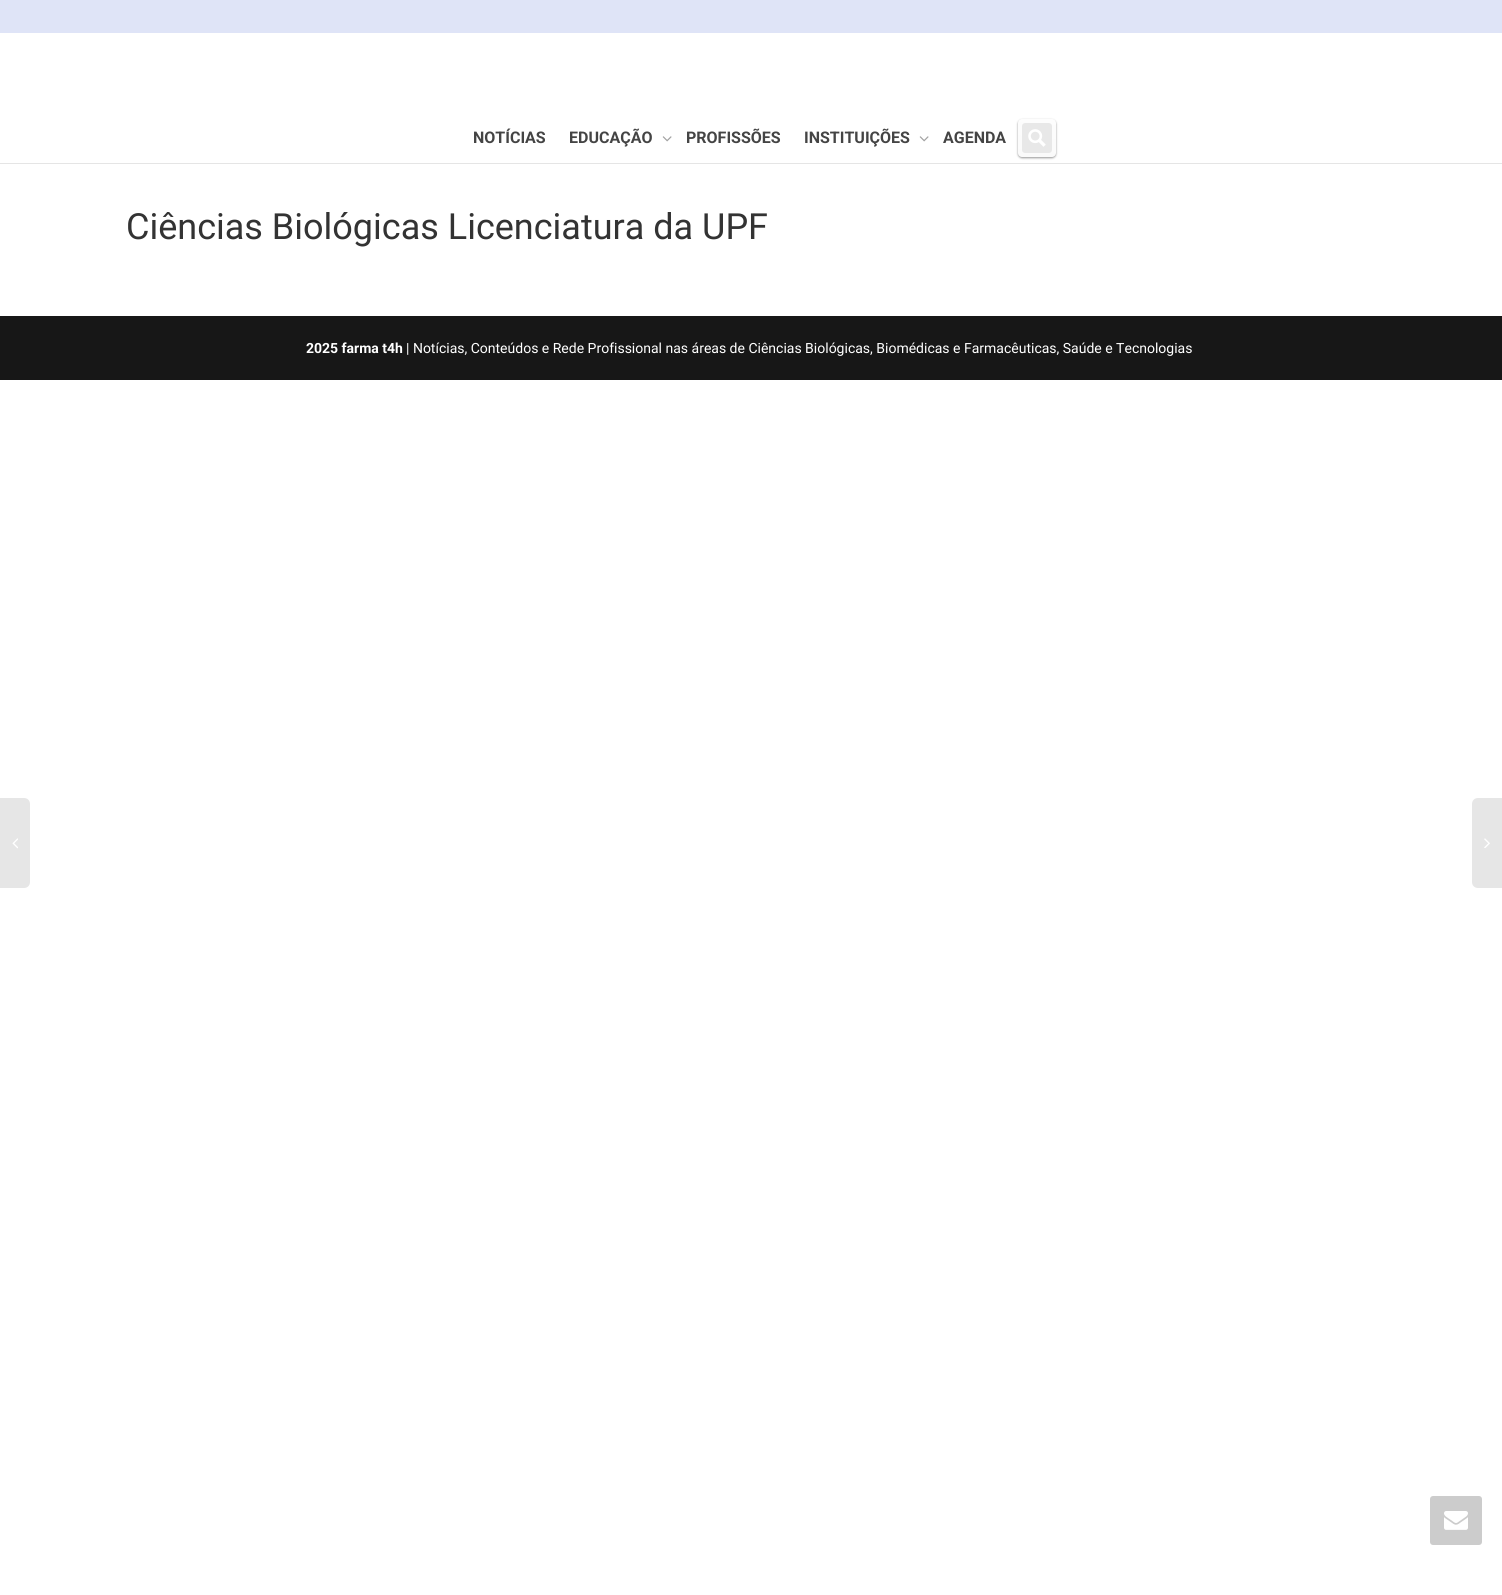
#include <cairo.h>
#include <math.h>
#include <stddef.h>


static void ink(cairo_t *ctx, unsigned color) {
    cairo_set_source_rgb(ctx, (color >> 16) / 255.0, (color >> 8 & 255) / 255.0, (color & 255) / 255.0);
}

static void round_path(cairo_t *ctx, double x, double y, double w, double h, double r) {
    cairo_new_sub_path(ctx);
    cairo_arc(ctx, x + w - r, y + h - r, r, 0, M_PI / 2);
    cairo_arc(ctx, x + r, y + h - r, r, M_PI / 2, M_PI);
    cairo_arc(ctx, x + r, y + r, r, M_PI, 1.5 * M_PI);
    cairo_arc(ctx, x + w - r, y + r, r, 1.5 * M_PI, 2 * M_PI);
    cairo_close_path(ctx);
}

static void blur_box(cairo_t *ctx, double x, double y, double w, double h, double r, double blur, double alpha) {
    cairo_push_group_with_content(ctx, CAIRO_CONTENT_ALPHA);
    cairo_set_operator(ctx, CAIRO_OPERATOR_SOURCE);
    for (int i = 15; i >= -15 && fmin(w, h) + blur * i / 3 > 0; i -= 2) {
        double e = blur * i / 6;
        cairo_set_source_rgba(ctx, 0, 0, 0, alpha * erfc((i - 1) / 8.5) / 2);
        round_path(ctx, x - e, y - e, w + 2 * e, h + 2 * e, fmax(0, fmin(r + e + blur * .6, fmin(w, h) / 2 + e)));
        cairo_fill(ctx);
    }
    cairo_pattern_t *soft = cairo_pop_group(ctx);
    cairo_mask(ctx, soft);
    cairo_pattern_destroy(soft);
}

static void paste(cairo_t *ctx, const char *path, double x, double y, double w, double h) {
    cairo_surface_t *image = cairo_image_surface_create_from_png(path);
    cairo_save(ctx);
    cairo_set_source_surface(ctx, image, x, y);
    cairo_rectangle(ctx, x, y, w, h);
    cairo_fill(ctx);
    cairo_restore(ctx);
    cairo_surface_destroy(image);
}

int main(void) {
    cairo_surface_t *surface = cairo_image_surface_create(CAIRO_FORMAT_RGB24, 1502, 1595);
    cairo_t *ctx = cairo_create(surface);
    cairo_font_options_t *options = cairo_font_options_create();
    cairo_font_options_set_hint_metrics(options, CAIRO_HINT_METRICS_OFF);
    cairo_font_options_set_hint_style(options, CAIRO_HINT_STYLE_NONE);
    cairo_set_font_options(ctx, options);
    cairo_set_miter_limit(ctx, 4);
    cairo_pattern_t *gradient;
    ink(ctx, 0xFFFFFF);
    cairo_paint(ctx);
    ink(ctx, 0xDFE4F7);
    cairo_rectangle(ctx, 0, 0, 1502, 33);
    cairo_fill(ctx);
    ink(ctx, 0xE5E5E5);
    cairo_rectangle(ctx, 0, 163, 1502, 1);
    cairo_fill(ctx);
    cairo_select_font_face(ctx, "Roboto", CAIRO_FONT_SLANT_NORMAL, CAIRO_FONT_WEIGHT_BOLD);
    cairo_set_font_size(ctx, 16);
    ink(ctx, 0x444444);
    cairo_move_to(ctx, 473, 143);
    cairo_show_text(ctx, "NOTÍCIAS");
    cairo_move_to(ctx, 569, 143);
    cairo_show_text(ctx, "EDUCAÇÃO");
    paste(ctx, "media/1.png", 662, 136, 10, 6);
    cairo_move_to(ctx, 686, 143);
    cairo_show_text(ctx, "PROFISSÕES");
    cairo_move_to(ctx, 804, 143);
    cairo_show_text(ctx, "INSTITUIÇÕES");
    paste(ctx, "media/1.png", 919, 136, 10, 6);
    cairo_move_to(ctx, 943, 143);
    cairo_show_text(ctx, "AGENDA");
    ink(ctx, 0x999999);
    blur_box(ctx, 1018, 120, 38, 38, 4, 1, 1);
    gradient = cairo_pattern_create_linear(1039, 117, 1035, 159);
    cairo_pattern_add_color_stop_rgba(gradient, 0, 0.992, 0.992, 0.992, 1);
    cairo_pattern_add_color_stop_rgba(gradient, 1, 0.98, 0.98, 0.98, 1);
    cairo_set_source(ctx, gradient);
    cairo_pattern_destroy(gradient);
    round_path(ctx, 1018, 119, 38, 38, 4);
    cairo_fill(ctx);
    ink(ctx, 0xE8E8E8);
    cairo_new_path(ctx);
    cairo_move_to(ctx, 1025, 123);
    cairo_line_to(ctx, 1049, 123);
    cairo_curve_to(ctx, 1050.5, 123, 1052, 124.5, 1052, 126);
    cairo_line_to(ctx, 1052, 150);
    cairo_curve_to(ctx, 1052, 151.5, 1050.5, 153, 1049, 153);
    cairo_line_to(ctx, 1025, 153);
    cairo_curve_to(ctx, 1023.5, 153, 1022, 151.5, 1022, 150);
    cairo_line_to(ctx, 1022, 126);
    cairo_curve_to(ctx, 1022, 124.5, 1023.5, 123, 1025, 123);
    cairo_close_path(ctx);
    cairo_fill(ctx);
    paste(ctx, "media/2.png", 1028, 129, 18, 18);
    cairo_select_font_face(ctx, "Roboto", CAIRO_FONT_SLANT_NORMAL, CAIRO_FONT_WEIGHT_NORMAL);
    cairo_set_font_size(ctx, 36);
    ink(ctx, 0x333333);
    cairo_move_to(ctx, 126, 239);
    cairo_show_text(ctx, "Ciências Biológicas Licenciatura da UPF");
    ink(ctx, 0xE6E6E6);
    cairo_new_path(ctx);
    cairo_move_to(ctx, -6, 798);
    cairo_line_to(ctx, 24, 798);
    cairo_curve_to(ctx, 27.5, 798, 30, 800.5, 30, 804);
    cairo_line_to(ctx, 30, 882);
    cairo_curve_to(ctx, 30, 885.5, 27.5, 888, 24, 888);
    cairo_line_to(ctx, -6, 888);
    cairo_close_path(ctx);
    cairo_fill(ctx);
    paste(ctx, "media/3.png", 12, 838, 6, 11);
    cairo_new_path(ctx);
    cairo_move_to(ctx, 1478, 798);
    cairo_line_to(ctx, 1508, 798);
    cairo_line_to(ctx, 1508, 888);
    cairo_line_to(ctx, 1478, 888);
    cairo_curve_to(ctx, 1474.5, 888, 1472, 885.5, 1472, 882);
    cairo_line_to(ctx, 1472, 804);
    cairo_curve_to(ctx, 1472, 800.5, 1474.5, 798, 1478, 798);
    cairo_close_path(ctx);
    cairo_fill(ctx);
    paste(ctx, "media/4.png", 1484, 838, 6, 10);
    ink(ctx, 0x171717);
    cairo_rectangle(ctx, 0, 316, 1502, 64);
    cairo_fill(ctx);
    cairo_select_font_face(ctx, "Roboto", CAIRO_FONT_SLANT_NORMAL, CAIRO_FONT_WEIGHT_BOLD);
    cairo_set_font_size(ctx, 14);
    ink(ctx, 0xFFFFFF);
    cairo_move_to(ctx, 306, 353);
    cairo_show_text(ctx, "2025 farma t4h");
    cairo_select_font_face(ctx, "Roboto", CAIRO_FONT_SLANT_NORMAL, CAIRO_FONT_WEIGHT_NORMAL);
    cairo_move_to(ctx, 406, 353);
    cairo_show_text(ctx, "| Notícias, Conteúdos e Rede Profissional nas áreas de Ciências Biológicas, Biomédicas e Farmacêuticas, Saúde e Tecnologias");
    ink(ctx, 0xCCCCCC);
    round_path(ctx, 1430, 1496, 52, 49, 3);
    cairo_fill(ctx);
    paste(ctx, "media/5.png", 1444, 1511, 24, 19);
    cairo_surface_write_to_png(surface, "image.png");
    cairo_font_options_destroy(options);
    cairo_destroy(ctx);
    cairo_surface_destroy(surface);
    return 0;
}
